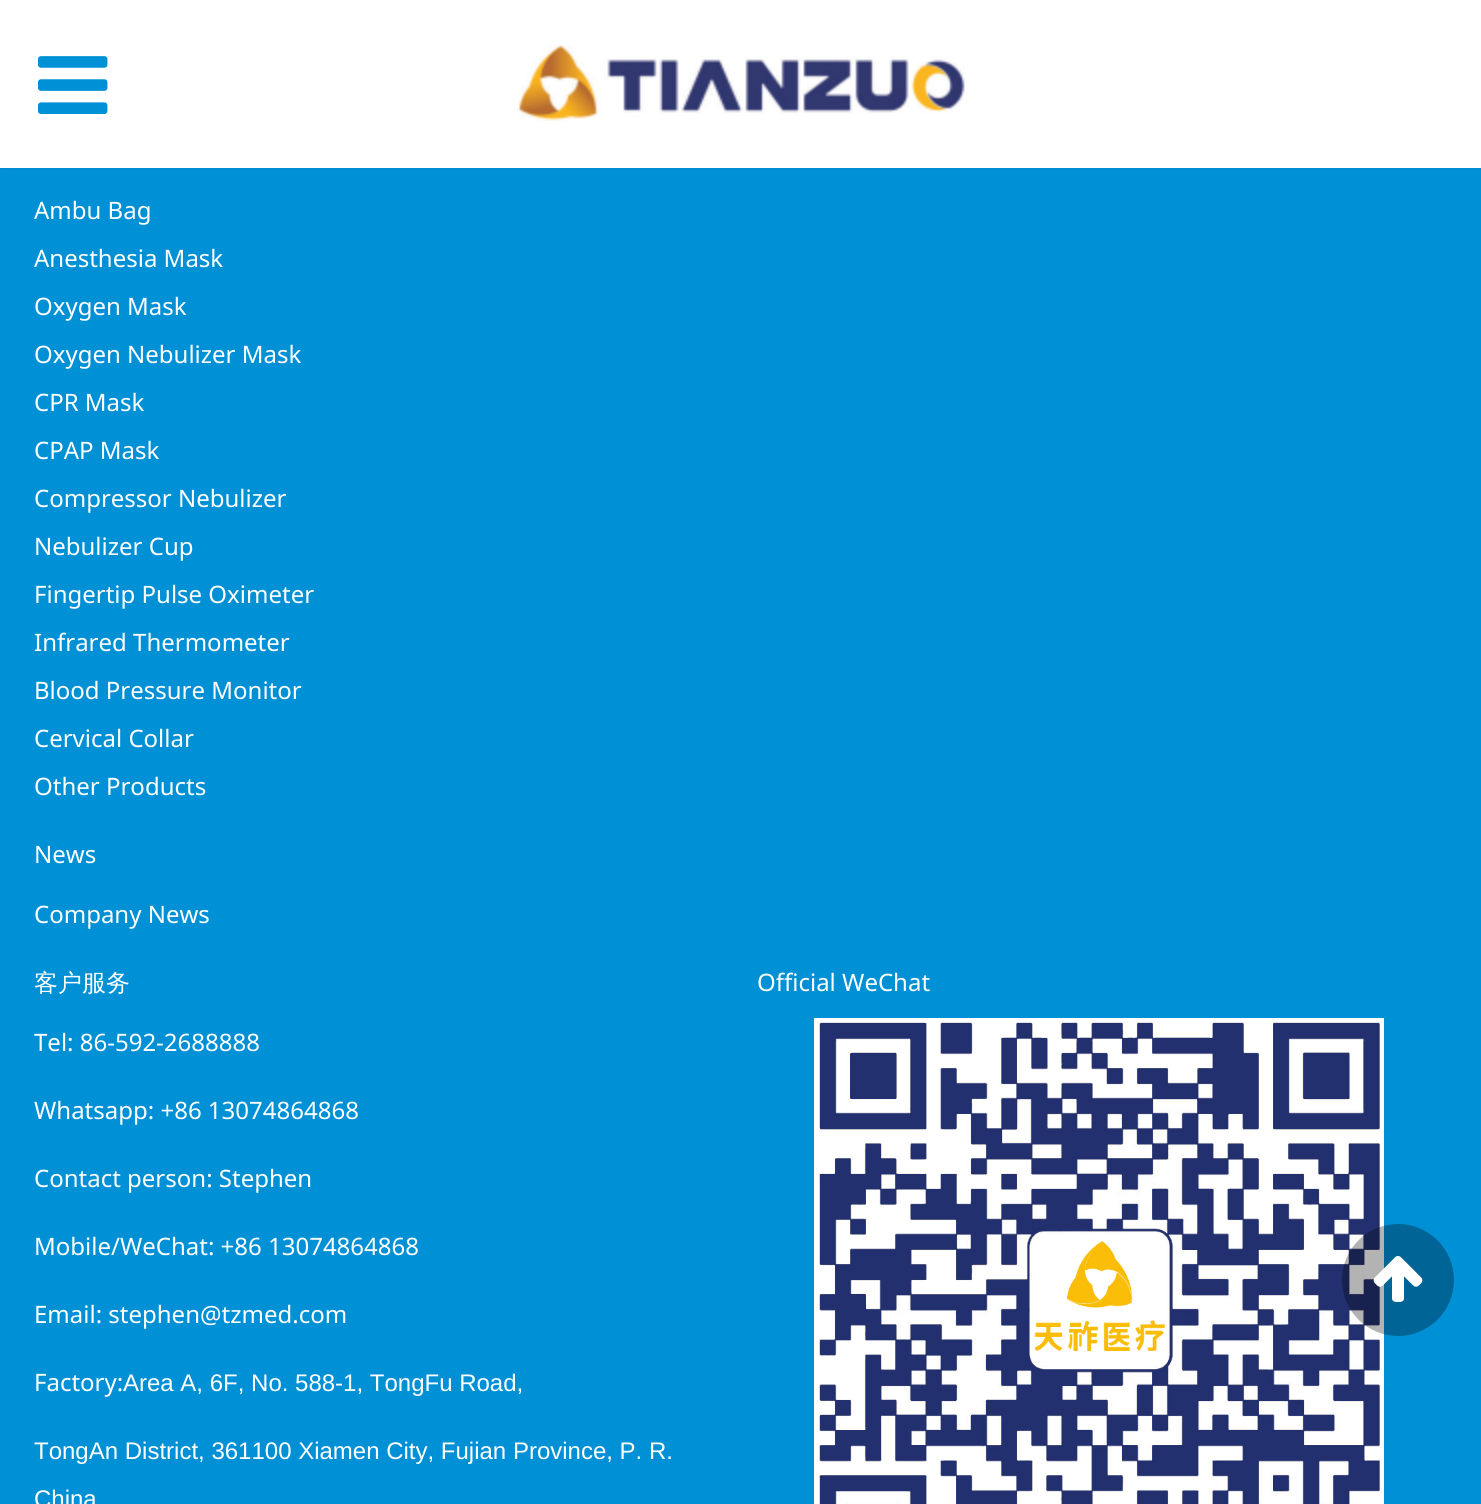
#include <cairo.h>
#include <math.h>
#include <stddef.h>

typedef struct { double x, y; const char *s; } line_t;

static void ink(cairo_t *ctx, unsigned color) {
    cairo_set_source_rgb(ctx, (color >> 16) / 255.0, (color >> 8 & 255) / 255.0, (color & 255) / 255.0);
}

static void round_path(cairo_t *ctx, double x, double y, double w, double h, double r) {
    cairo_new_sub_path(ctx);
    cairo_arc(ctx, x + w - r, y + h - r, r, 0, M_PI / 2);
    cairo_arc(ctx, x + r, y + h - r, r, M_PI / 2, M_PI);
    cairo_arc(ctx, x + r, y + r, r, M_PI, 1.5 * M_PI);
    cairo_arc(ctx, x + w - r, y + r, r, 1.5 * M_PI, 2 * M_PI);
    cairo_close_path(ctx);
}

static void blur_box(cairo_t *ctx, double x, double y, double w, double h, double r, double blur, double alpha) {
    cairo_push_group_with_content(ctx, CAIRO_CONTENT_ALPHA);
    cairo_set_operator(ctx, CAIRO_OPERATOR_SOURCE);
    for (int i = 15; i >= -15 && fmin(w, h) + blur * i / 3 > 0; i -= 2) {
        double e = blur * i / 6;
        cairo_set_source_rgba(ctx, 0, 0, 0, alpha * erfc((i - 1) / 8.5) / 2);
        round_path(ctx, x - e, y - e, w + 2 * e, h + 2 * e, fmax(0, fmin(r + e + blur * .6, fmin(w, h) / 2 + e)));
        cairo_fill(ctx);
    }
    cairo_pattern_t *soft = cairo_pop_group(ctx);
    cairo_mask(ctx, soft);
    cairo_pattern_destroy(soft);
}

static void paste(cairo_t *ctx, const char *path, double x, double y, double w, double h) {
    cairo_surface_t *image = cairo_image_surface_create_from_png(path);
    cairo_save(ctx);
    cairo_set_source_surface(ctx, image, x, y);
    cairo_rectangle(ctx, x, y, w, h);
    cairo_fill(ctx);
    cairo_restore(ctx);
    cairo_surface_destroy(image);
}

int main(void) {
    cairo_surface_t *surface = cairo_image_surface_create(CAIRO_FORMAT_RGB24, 1481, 1504);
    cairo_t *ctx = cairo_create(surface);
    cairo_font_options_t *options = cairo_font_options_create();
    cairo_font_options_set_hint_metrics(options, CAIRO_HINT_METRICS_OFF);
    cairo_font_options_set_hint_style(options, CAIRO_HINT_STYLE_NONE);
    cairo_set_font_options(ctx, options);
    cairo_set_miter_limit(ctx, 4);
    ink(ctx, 0x0090D6);
    cairo_paint(ctx);
    ink(ctx, 0x000000);
    blur_box(ctx, 0, 0, 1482, 168, 0, 1, 0.1);
    ink(ctx, 0xFFFFFF);
    cairo_rectangle(ctx, 0, 0, 1481, 168);
    cairo_fill(ctx);
    paste(ctx, "media/1.png", 38, 56, 70, 58);
    paste(ctx, "media/2.png", 517, 45, 448, 76);
    cairo_select_font_face(ctx, "Noto Sans", CAIRO_FONT_SLANT_NORMAL, CAIRO_FONT_WEIGHT_NORMAL);
    cairo_set_font_size(ctx, 24);
    {
        static const line_t items[] = {
            {34, 219, "Ambu Bag"},
            {34, 267, "Anesthesia Mask"},
            {34, 315, "Oxygen Mask"},
            {34, 363, "Oxygen Nebulizer Mask"},
            {34, 411, "CPR Mask"},
            {34, 459, "CPAP Mask"},
            {34, 507, "Compressor Nebulizer"},
            {34, 555, "Nebulizer Cup"},
            {34, 603, "Fingertip Pulse Oximeter"},
            {34, 651, "Infrared Thermometer"},
            {34, 699, "Blood Pressure Monitor"},
            {34, 747, "Cervical Collar"},
            {34, 795, "Other Products"},
            {34, 863, "News"},
            {34, 923, "Company News"},
        };
        for (size_t i = 0; i < sizeof items / sizeof *items; i++) {
            cairo_move_to(ctx, items[i].x, items[i].y);
            cairo_show_text(ctx, items[i].s);
        }
    }
    cairo_select_font_face(ctx, "WenQuanYi Zen Hei Medium", CAIRO_FONT_SLANT_NORMAL, CAIRO_FONT_WEIGHT_NORMAL);
    cairo_move_to(ctx, 34, 991);
    cairo_show_text(ctx, "客户服务");
    cairo_select_font_face(ctx, "Noto Sans", CAIRO_FONT_SLANT_NORMAL, CAIRO_FONT_WEIGHT_NORMAL);
    {
        static const line_t items[] = {
            {757, 991, "Official WeChat"},
            {34, 1051, "Tel: 86-592-2688888"},
            {34, 1119, "Whatsapp: +86 13074864868"},
            {34, 1187, "Contact person: Stephen"},
            {34, 1255, "Mobile/WeChat: +86 13074864868"},
            {34, 1323, "Email: stephen@tzmed.com"},
            {34, 1391, "Factory:"},
        };
        for (size_t i = 0; i < sizeof items / sizeof *items; i++) {
            cairo_move_to(ctx, items[i].x, items[i].y);
            cairo_show_text(ctx, items[i].s);
        }
    }
    cairo_select_font_face(ctx, "Liberation Sans", CAIRO_FONT_SLANT_NORMAL, CAIRO_FONT_WEIGHT_NORMAL);
    {
        static const line_t items[] = {
            {123, 1391, "Area A, 6F, No. 588-1, TongFu Road,"},
            {34, 1459, "TongAn District, 361100 Xiamen City, Fujian Province, P. R."},
            {34, 1507, "China"},
        };
        for (size_t i = 0; i < sizeof items / sizeof *items; i++) {
            cairo_move_to(ctx, items[i].x, items[i].y);
            cairo_show_text(ctx, items[i].s);
        }
    }
    paste(ctx, "media/3.png", 814, 1018, 570, 486);
    cairo_set_source_rgba(ctx, 0, 0, 0, 0.3);
    cairo_arc(ctx, 1398, 1280, 56, 0, 2 * M_PI);
    cairo_fill(ctx);
    paste(ctx, "media/4.png", 1373, 1256, 50, 46);
    cairo_surface_write_to_png(surface, "image.png");
    cairo_font_options_destroy(options);
    cairo_destroy(ctx);
    cairo_surface_destroy(surface);
    return 0;
}
